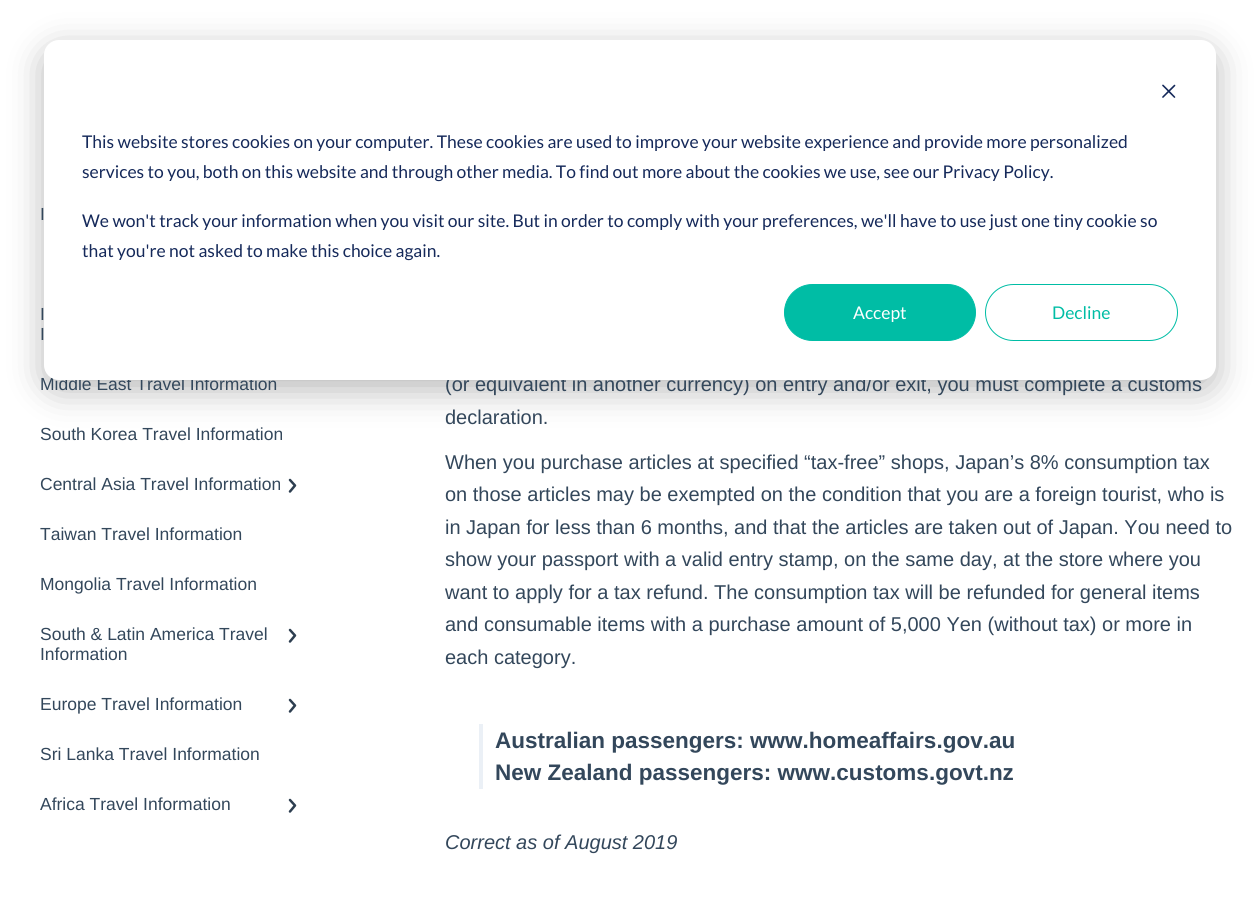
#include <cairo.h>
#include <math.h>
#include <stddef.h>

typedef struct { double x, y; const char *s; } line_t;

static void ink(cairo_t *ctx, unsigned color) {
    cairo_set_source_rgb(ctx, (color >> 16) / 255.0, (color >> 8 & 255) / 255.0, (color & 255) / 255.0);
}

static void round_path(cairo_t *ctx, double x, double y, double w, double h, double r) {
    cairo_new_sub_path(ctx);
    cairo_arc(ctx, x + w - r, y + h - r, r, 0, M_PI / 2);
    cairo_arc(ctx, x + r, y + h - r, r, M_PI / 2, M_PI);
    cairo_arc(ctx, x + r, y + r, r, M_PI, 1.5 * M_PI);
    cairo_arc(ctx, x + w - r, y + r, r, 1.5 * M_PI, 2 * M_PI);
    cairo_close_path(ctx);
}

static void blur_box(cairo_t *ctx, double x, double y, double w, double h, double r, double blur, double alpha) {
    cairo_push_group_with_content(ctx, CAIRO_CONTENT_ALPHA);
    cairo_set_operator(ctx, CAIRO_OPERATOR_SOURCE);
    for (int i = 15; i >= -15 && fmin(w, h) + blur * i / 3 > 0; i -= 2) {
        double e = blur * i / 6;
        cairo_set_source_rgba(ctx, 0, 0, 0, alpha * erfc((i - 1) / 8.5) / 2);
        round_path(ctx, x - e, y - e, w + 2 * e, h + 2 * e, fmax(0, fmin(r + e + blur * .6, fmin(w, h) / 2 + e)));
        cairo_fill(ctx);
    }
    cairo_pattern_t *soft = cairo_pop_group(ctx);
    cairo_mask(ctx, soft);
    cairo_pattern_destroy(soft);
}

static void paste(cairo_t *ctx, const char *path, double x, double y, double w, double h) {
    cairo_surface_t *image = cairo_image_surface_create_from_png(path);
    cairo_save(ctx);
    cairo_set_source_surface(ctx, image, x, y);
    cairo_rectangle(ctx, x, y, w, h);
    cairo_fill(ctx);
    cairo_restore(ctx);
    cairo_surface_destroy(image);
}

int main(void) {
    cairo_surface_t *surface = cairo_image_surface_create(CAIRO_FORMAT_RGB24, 1258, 920);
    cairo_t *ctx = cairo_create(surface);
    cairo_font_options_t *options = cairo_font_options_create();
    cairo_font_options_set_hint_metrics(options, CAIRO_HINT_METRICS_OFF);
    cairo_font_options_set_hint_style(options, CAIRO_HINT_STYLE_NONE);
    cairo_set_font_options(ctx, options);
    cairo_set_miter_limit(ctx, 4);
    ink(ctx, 0xFFFFFF);
    cairo_paint(ctx);
    ink(ctx, 0x000000);
    blur_box(ctx, 44, 50, 1172, 340, 15, 17.5, 0.28);
    cairo_select_font_face(ctx, "Liberation Sans", CAIRO_FONT_SLANT_NORMAL, CAIRO_FONT_WEIGHT_NORMAL);
    cairo_set_font_size(ctx, 17.5);
    ink(ctx, 0x33475B);
    cairo_move_to(ctx, 40, 390);
    cairo_show_text(ctx, "Middle East Travel Information");
    cairo_set_font_size(ctx, 20);
    cairo_move_to(ctx, 445, 391);
    cairo_show_text(ctx, "(or equivalent in another currency) on entry and/or exit, you must complete a customs");
    ink(ctx, 0xFFFFFF);
    round_path(ctx, 44, 40, 1172, 340, 15);
    cairo_fill(ctx);
    paste(ctx, "media/1.png", 1162, 84, 14, 14);
    cairo_select_font_face(ctx, "Lato", CAIRO_FONT_SLANT_NORMAL, CAIRO_FONT_WEIGHT_NORMAL);
    cairo_set_font_size(ctx, 17.5);
    ink(ctx, 0x15295A);
    {
        static const line_t items[] = {
            {82, 148, "This website stores cookies on your computer. These cookies are used to improve your website experience and provide more personalized"},
            {82, 178, "services to you, both on this website and through other media. To find out more about the cookies we use, see our Privacy Policy."},
            {82, 227, "We won't track your information when you visit our site. But in order to comply with your preferences, we'll have to use just one tiny cookie so"},
            {82, 257, "that you're not asked to make this choice again."},
        };
        for (size_t i = 0; i < sizeof items / sizeof *items; i++) {
            cairo_move_to(ctx, items[i].x, items[i].y);
            cairo_show_text(ctx, items[i].s);
        }
    }
    ink(ctx, 0x00BDA5);
    round_path(ctx, 784.5, 284.5, 191, 56, 28);
    cairo_fill_preserve(ctx);
    cairo_set_line_width(ctx, 1);
    cairo_stroke(ctx);
    ink(ctx, 0xFFFFFF);
    cairo_move_to(ctx, 853, 319);
    cairo_show_text(ctx, "Accept");
    round_path(ctx, 985.5, 284.5, 192, 56, 28);
    ink(ctx, 0x00BDA5);
    cairo_stroke(ctx);
    cairo_move_to(ctx, 1052, 319);
    cairo_show_text(ctx, "Decline");
    cairo_select_font_face(ctx, "Liberation Sans", CAIRO_FONT_SLANT_NORMAL, CAIRO_FONT_WEIGHT_NORMAL);
    ink(ctx, 0x33475B);
    {
        static const line_t items[] = {
            {40, 220, "I"},
            {40, 320, "I"},
            {40, 340, "I"},
            {40, 440, "South Korea Travel Information"},
            {40, 490, "Central Asia Travel Information"},
        };
        for (size_t i = 0; i < sizeof items / sizeof *items; i++) {
            cairo_move_to(ctx, items[i].x, items[i].y);
            cairo_show_text(ctx, items[i].s);
        }
    }
    cairo_new_path(ctx);
    cairo_move_to(ctx, 290, 480);
    cairo_line_to(ctx, 295, 485.5);
    cairo_line_to(ctx, 290, 491.5);
    ink(ctx, 0x2D3E50);
    cairo_set_line_width(ctx, 2.5);
    cairo_set_line_cap(ctx, CAIRO_LINE_CAP_ROUND);
    cairo_set_line_join(ctx, CAIRO_LINE_JOIN_ROUND);
    cairo_stroke(ctx);
    ink(ctx, 0x33475B);
    {
        static const line_t items[] = {
            {40, 540, "Taiwan Travel Information"},
            {40, 590, "Mongolia Travel Information"},
            {40, 640, "South & Latin America Travel"},
            {40, 660, "Information"},
        };
        for (size_t i = 0; i < sizeof items / sizeof *items; i++) {
            cairo_move_to(ctx, items[i].x, items[i].y);
            cairo_show_text(ctx, items[i].s);
        }
    }
    cairo_new_path(ctx);
    cairo_move_to(ctx, 290, 630);
    cairo_line_to(ctx, 295, 635.5);
    cairo_line_to(ctx, 290, 641.5);
    ink(ctx, 0x2D3E50);
    cairo_stroke(ctx);
    ink(ctx, 0x33475B);
    cairo_move_to(ctx, 40, 710);
    cairo_show_text(ctx, "Europe Travel Information");
    cairo_new_path(ctx);
    cairo_move_to(ctx, 290, 700);
    cairo_line_to(ctx, 295, 705.5);
    cairo_line_to(ctx, 290, 711.5);
    ink(ctx, 0x2D3E50);
    cairo_stroke(ctx);
    ink(ctx, 0x33475B);
    cairo_move_to(ctx, 40, 760);
    cairo_show_text(ctx, "Sri Lanka Travel Information");
    cairo_move_to(ctx, 40, 810);
    cairo_show_text(ctx, "Africa Travel Information");
    cairo_new_path(ctx);
    cairo_move_to(ctx, 290, 800);
    cairo_line_to(ctx, 295, 805.5);
    cairo_line_to(ctx, 290, 811.5);
    ink(ctx, 0x2D3E50);
    cairo_stroke(ctx);
    cairo_set_font_size(ctx, 20);
    ink(ctx, 0x33475B);
    {
        static const line_t items[] = {
            {445, 424, "declaration."},
            {445, 469, "When you purchase articles at specified “tax-free” shops, Japan’s 8% consumption tax"},
            {445, 501, "on those articles may be exempted on the condition that you are a foreign tourist, who is"},
            {445, 534, "in Japan for less than 6 months, and that the articles are taken out of Japan. You need to"},
            {445, 566, "show your passport with a valid entry stamp, on the same day, at the store where you"},
            {445, 599, "want to apply for a tax refund. The consumption tax will be refunded for general items"},
            {445, 631, "and consumable items with a purchase amount of 5,000 Yen (without tax) or more in"},
            {445, 664, "each category."},
        };
        for (size_t i = 0; i < sizeof items / sizeof *items; i++) {
            cairo_move_to(ctx, items[i].x, items[i].y);
            cairo_show_text(ctx, items[i].s);
        }
    }
    ink(ctx, 0xEBF0F6);
    cairo_rectangle(ctx, 479, 724, 4, 65);
    cairo_fill(ctx);
    cairo_select_font_face(ctx, "Liberation Sans", CAIRO_FONT_SLANT_NORMAL, CAIRO_FONT_WEIGHT_BOLD);
    cairo_set_font_size(ctx, 22.5);
    ink(ctx, 0x33475B);
    cairo_move_to(ctx, 495, 748);
    cairo_show_text(ctx, "Australian passengers: www.homeaffairs.gov.au");
    cairo_move_to(ctx, 495, 780);
    cairo_show_text(ctx, "New Zealand passengers: www.customs.govt.nz");
    cairo_select_font_face(ctx, "Liberation Sans", CAIRO_FONT_SLANT_ITALIC, CAIRO_FONT_WEIGHT_NORMAL);
    cairo_set_font_size(ctx, 20);
    cairo_move_to(ctx, 445, 849);
    cairo_show_text(ctx, "Correct as of August 2019");
    cairo_surface_write_to_png(surface, "image.png");
    cairo_font_options_destroy(options);
    cairo_destroy(ctx);
    cairo_surface_destroy(surface);
    return 0;
}
